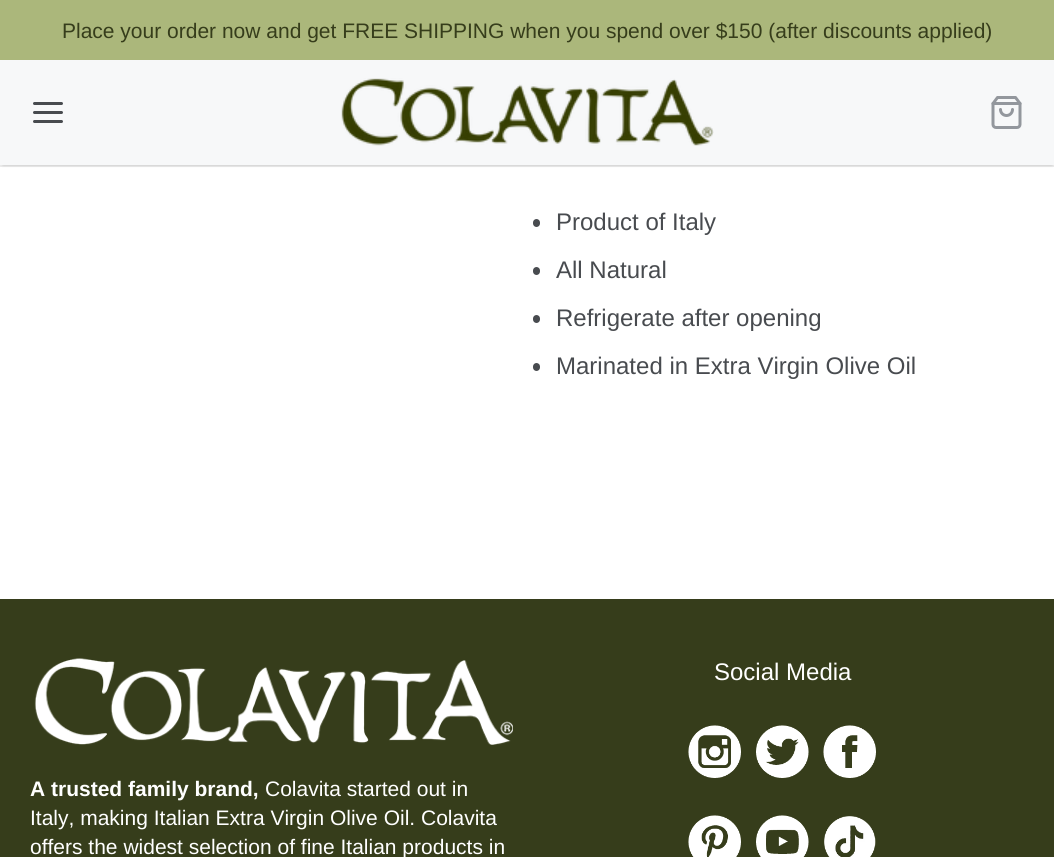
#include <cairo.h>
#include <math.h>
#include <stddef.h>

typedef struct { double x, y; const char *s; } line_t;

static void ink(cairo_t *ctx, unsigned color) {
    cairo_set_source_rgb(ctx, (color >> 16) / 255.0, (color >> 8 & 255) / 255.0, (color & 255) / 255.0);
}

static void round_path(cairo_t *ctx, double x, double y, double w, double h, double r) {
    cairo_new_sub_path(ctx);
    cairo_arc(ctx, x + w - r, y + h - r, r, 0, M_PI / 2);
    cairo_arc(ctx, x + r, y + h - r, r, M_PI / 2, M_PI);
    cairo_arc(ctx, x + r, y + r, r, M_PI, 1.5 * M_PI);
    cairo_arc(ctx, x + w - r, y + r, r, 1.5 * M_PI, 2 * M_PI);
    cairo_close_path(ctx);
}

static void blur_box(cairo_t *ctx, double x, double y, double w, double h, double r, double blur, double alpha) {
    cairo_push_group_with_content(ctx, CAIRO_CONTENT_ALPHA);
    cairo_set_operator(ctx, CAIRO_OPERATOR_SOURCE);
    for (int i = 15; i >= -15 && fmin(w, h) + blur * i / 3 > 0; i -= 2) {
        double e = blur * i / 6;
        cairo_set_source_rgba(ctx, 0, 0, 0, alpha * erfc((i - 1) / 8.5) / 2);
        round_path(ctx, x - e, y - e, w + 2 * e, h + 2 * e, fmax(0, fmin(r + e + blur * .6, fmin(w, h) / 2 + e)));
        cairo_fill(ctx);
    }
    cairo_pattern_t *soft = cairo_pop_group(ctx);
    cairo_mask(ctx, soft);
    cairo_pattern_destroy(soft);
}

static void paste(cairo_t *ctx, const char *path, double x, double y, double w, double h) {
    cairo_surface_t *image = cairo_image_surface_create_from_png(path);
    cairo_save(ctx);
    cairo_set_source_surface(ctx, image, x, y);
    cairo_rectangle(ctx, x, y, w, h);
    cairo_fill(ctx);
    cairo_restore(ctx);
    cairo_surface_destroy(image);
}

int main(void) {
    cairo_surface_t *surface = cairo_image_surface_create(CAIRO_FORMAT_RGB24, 1054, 857);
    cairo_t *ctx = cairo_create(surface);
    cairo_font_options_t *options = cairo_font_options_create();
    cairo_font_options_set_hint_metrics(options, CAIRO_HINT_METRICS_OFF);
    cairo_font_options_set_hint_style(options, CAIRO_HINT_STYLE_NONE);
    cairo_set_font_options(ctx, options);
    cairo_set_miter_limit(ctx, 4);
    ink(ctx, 0xFFFFFF);
    cairo_paint(ctx);
    ink(ctx, 0xEBEBEB);
    cairo_rectangle(ctx, 0, 165, 1054, 2);
    cairo_fill(ctx);
    ink(ctx, 0xABB77B);
    cairo_rectangle(ctx, 0, 0, 1054, 60);
    cairo_fill(ctx);
    cairo_select_font_face(ctx, "Liberation Sans", CAIRO_FONT_SLANT_NORMAL, CAIRO_FONT_WEIGHT_NORMAL);
    cairo_set_font_size(ctx, 21);
    ink(ctx, 0x363D1B);
    cairo_move_to(ctx, 62, 38);
    cairo_show_text(ctx, "Place your order now and get FREE SHIPPING when you spend over $150 (after discounts applied)");
    ink(ctx, 0x000000);
    blur_box(ctx, 3, 66, 1049, 99, 0, 1.5, 0.2);
    ink(ctx, 0xF7F8F9);
    cairo_rectangle(ctx, 0, 60, 1054, 105);
    cairo_fill(ctx);
    cairo_new_path(ctx);
    cairo_move_to(ctx, 34.5, 112.5);
    cairo_line_to(ctx, 61.5, 112.5);
    cairo_move_to(ctx, 34.5, 103.5);
    cairo_line_to(ctx, 61.5, 103.5);
    cairo_move_to(ctx, 34.5, 121.5);
    cairo_line_to(ctx, 61.5, 121.5);
    ink(ctx, 0x484B4F);
    cairo_set_line_width(ctx, 3);
    cairo_set_line_cap(ctx, CAIRO_LINE_CAP_ROUND);
    cairo_set_line_join(ctx, CAIRO_LINE_JOIN_ROUND);
    cairo_stroke(ctx);
    paste(ctx, "media/1.png", 341, 78, 373, 68);
    paste(ctx, "media/2.png", 991, 96, 31, 33);
    round_path(ctx, 533, 219, 7, 8, 3.5);
    cairo_fill(ctx);
    cairo_set_font_size(ctx, 24);
    cairo_move_to(ctx, 556, 230);
    cairo_show_text(ctx, "Product of Italy");
    round_path(ctx, 533, 267, 7, 8, 3.5);
    cairo_fill(ctx);
    cairo_move_to(ctx, 556, 278);
    cairo_show_text(ctx, "All Natural");
    round_path(ctx, 533, 315, 7, 8, 3.5);
    cairo_fill(ctx);
    cairo_move_to(ctx, 556, 326);
    cairo_show_text(ctx, "Refrigerate after opening");
    round_path(ctx, 533, 363, 7, 8, 3.5);
    cairo_fill(ctx);
    cairo_move_to(ctx, 556, 374);
    cairo_show_text(ctx, "Marinated in Extra Virgin Olive Oil");
    ink(ctx, 0x363D1B);
    cairo_rectangle(ctx, 0, 599, 1054, 258);
    cairo_fill(ctx);
    ink(ctx, 0xFFFFFF);
    cairo_move_to(ctx, 714, 680);
    cairo_show_text(ctx, "Social Media");
    paste(ctx, "media/3.png", 688, 725, 53, 53);
    paste(ctx, "media/4.png", 756, 725, 53, 53);
    paste(ctx, "media/5.png", 823, 725, 53, 53);
    paste(ctx, "media/6.png", 688, 815, 53, 42);
    paste(ctx, "media/7.png", 756, 815, 53, 42);
    paste(ctx, "media/8.png", 824, 816, 52, 41);
    paste(ctx, "media/9.png", 34, 658, 479, 87);
    cairo_select_font_face(ctx, "Liberation Sans", CAIRO_FONT_SLANT_NORMAL, CAIRO_FONT_WEIGHT_BOLD);
    cairo_set_font_size(ctx, 21);
    cairo_move_to(ctx, 30, 796);
    cairo_show_text(ctx, "A trusted family brand,");
    cairo_select_font_face(ctx, "Liberation Sans", CAIRO_FONT_SLANT_NORMAL, CAIRO_FONT_WEIGHT_NORMAL);
    {
        static const line_t items[] = {
            {265, 796, "Colavita started out in"},
            {30, 825, "Italy, making Italian Extra Virgin Olive Oil. Colavita"},
            {30, 854, "offers the widest selection of fine Italian products in"},
        };
        for (size_t i = 0; i < sizeof items / sizeof *items; i++) {
            cairo_move_to(ctx, items[i].x, items[i].y);
            cairo_show_text(ctx, items[i].s);
        }
    }
    cairo_surface_write_to_png(surface, "image.png");
    cairo_font_options_destroy(options);
    cairo_destroy(ctx);
    cairo_surface_destroy(surface);
    return 0;
}
